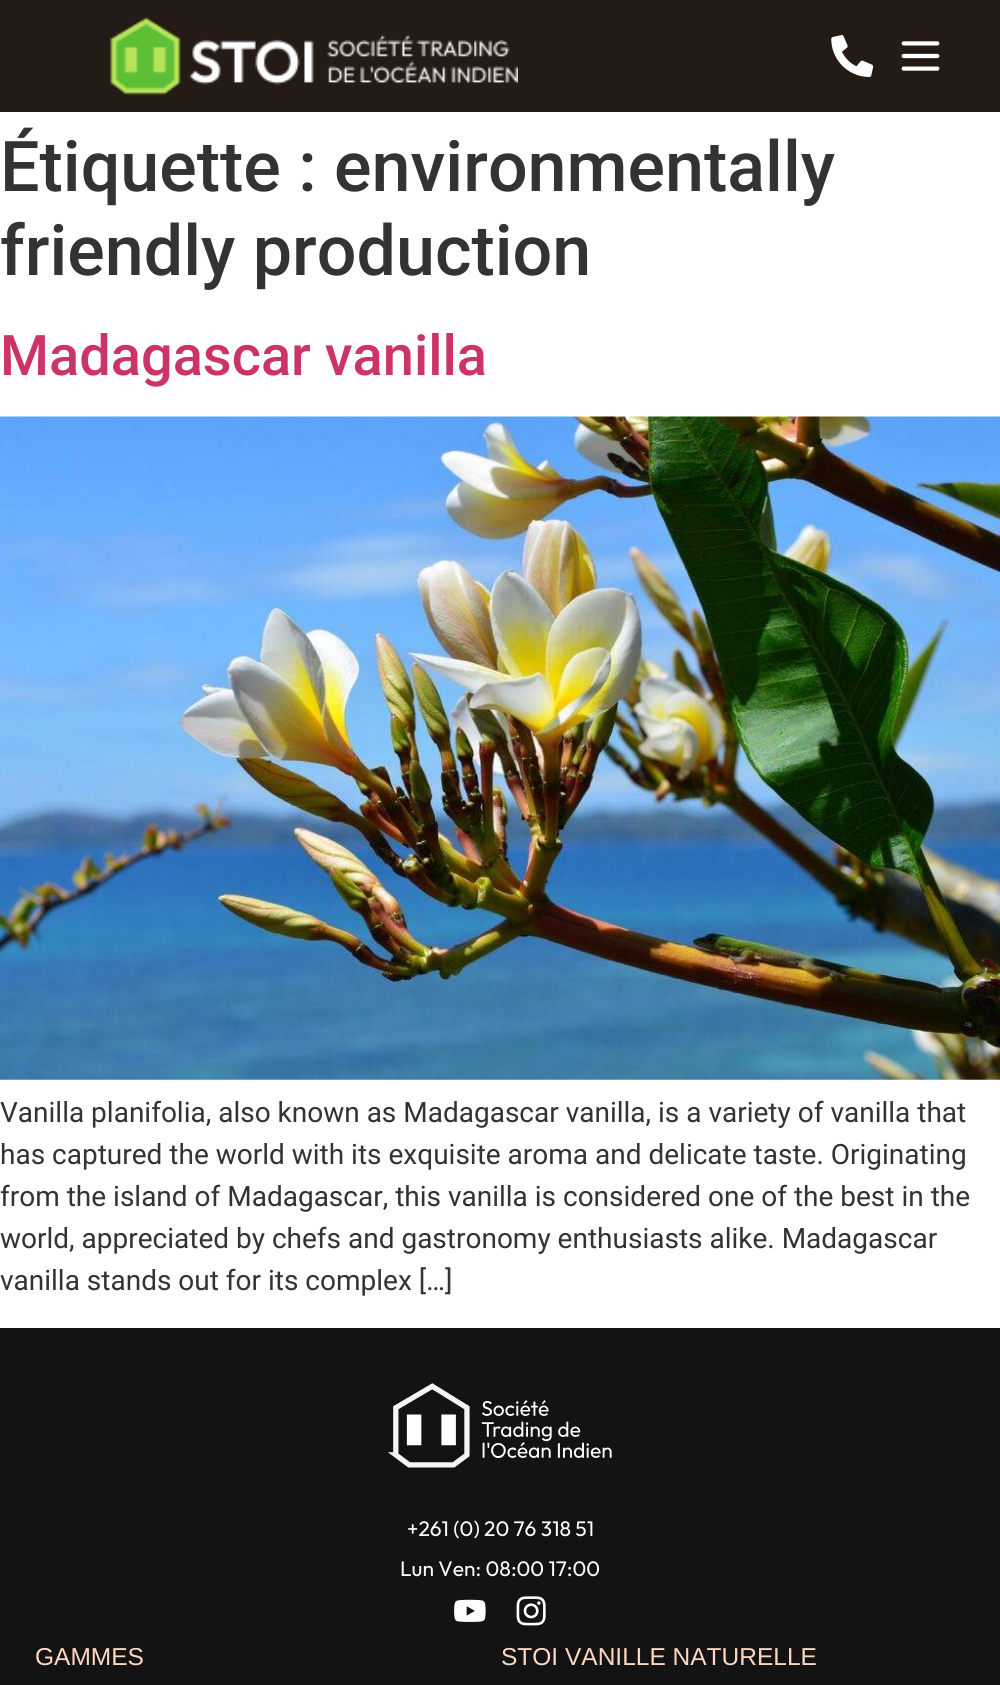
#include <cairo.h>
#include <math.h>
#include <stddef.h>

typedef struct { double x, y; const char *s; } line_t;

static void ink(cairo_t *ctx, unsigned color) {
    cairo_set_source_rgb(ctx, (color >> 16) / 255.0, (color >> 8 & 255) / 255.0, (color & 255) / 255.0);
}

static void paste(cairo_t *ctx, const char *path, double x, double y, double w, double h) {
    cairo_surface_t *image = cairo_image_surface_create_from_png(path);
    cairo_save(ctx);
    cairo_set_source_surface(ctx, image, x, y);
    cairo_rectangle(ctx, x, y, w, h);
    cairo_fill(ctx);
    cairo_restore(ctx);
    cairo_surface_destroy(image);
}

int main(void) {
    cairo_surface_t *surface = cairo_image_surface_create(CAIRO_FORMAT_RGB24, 1000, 1685);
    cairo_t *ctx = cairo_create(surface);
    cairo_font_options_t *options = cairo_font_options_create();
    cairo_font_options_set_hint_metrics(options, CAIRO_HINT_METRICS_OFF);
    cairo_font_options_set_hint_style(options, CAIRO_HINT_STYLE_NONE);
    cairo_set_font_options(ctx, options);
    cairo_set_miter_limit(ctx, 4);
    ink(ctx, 0xFFFFFF);
    cairo_paint(ctx);
    ink(ctx, 0x241A16);
    cairo_rectangle(ctx, 0, 0, 1000, 112);
    cairo_fill(ctx);
    paste(ctx, "media/1.png", 110, 17, 408, 78);
    paste(ctx, "media/2.png", 831, 35, 42, 42);
    paste(ctx, "media/3.png", 901, 41, 39, 30);
    cairo_select_font_face(ctx, "Roboto Medium", CAIRO_FONT_SLANT_NORMAL, CAIRO_FONT_WEIGHT_NORMAL);
    cairo_set_font_size(ctx, 70);
    ink(ctx, 0x333333);
    cairo_move_to(ctx, 0, 191);
    cairo_show_text(ctx, "Étiquette : environmentally");
    cairo_move_to(ctx, 0, 275);
    cairo_show_text(ctx, "friendly production");
    cairo_set_font_size(ctx, 56);
    ink(ctx, 0xCC3366);
    cairo_move_to(ctx, 0, 375);
    cairo_show_text(ctx, "Madagascar vanilla");
    paste(ctx, "media/4.png", 0, 416, 1000, 664);
    cairo_select_font_face(ctx, "Roboto", CAIRO_FONT_SLANT_NORMAL, CAIRO_FONT_WEIGHT_NORMAL);
    cairo_set_font_size(ctx, 28);
    ink(ctx, 0x333333);
    {
        static const line_t items[] = {
            {0, 1122, "Vanilla planifolia, also known as Madagascar vanilla, is a variety of vanilla that"},
            {0, 1164, "has captured the world with its exquisite aroma and delicate taste. Originating"},
            {0, 1206, "from the island of Madagascar, this vanilla is considered one of the best in the"},
            {0, 1248, "world, appreciated by chefs and gastronomy enthusiasts alike. Madagascar"},
            {0, 1290, "vanilla stands out for its complex […]"},
        };
        for (size_t i = 0; i < sizeof items / sizeof *items; i++) {
            cairo_move_to(ctx, items[i].x, items[i].y);
            cairo_show_text(ctx, items[i].s);
        }
    }
    ink(ctx, 0x131313);
    cairo_rectangle(ctx, 0, 1328, 1000, 357);
    cairo_fill(ctx);
    paste(ctx, "media/5.png", 388, 1383, 224, 85);
    cairo_select_font_face(ctx, "Outfit", CAIRO_FONT_SLANT_NORMAL, CAIRO_FONT_WEIGHT_NORMAL);
    cairo_set_font_size(ctx, 21);
    ink(ctx, 0xFFFFFF);
    cairo_move_to(ctx, 407, 1536);
    cairo_show_text(ctx, "+261 (0) 20 76 318 51");
    cairo_move_to(ctx, 400, 1576);
    cairo_show_text(ctx, "Lun Ven: 08:00 17:00");
    paste(ctx, "media/6.png", 454, 1599, 32, 23);
    paste(ctx, "media/7.png", 516, 1596, 30, 30);
    cairo_select_font_face(ctx, "Liberation Sans", CAIRO_FONT_SLANT_NORMAL, CAIRO_FONT_WEIGHT_NORMAL);
    cairo_set_font_size(ctx, 24.5);
    ink(ctx, 0xFFD8C2);
    cairo_move_to(ctx, 35, 1665);
    cairo_show_text(ctx, "GAMMES");
    cairo_move_to(ctx, 501, 1665);
    cairo_show_text(ctx, "STOI VANILLE NATURELLE");
    cairo_surface_write_to_png(surface, "image.png");
    cairo_font_options_destroy(options);
    cairo_destroy(ctx);
    cairo_surface_destroy(surface);
    return 0;
}
